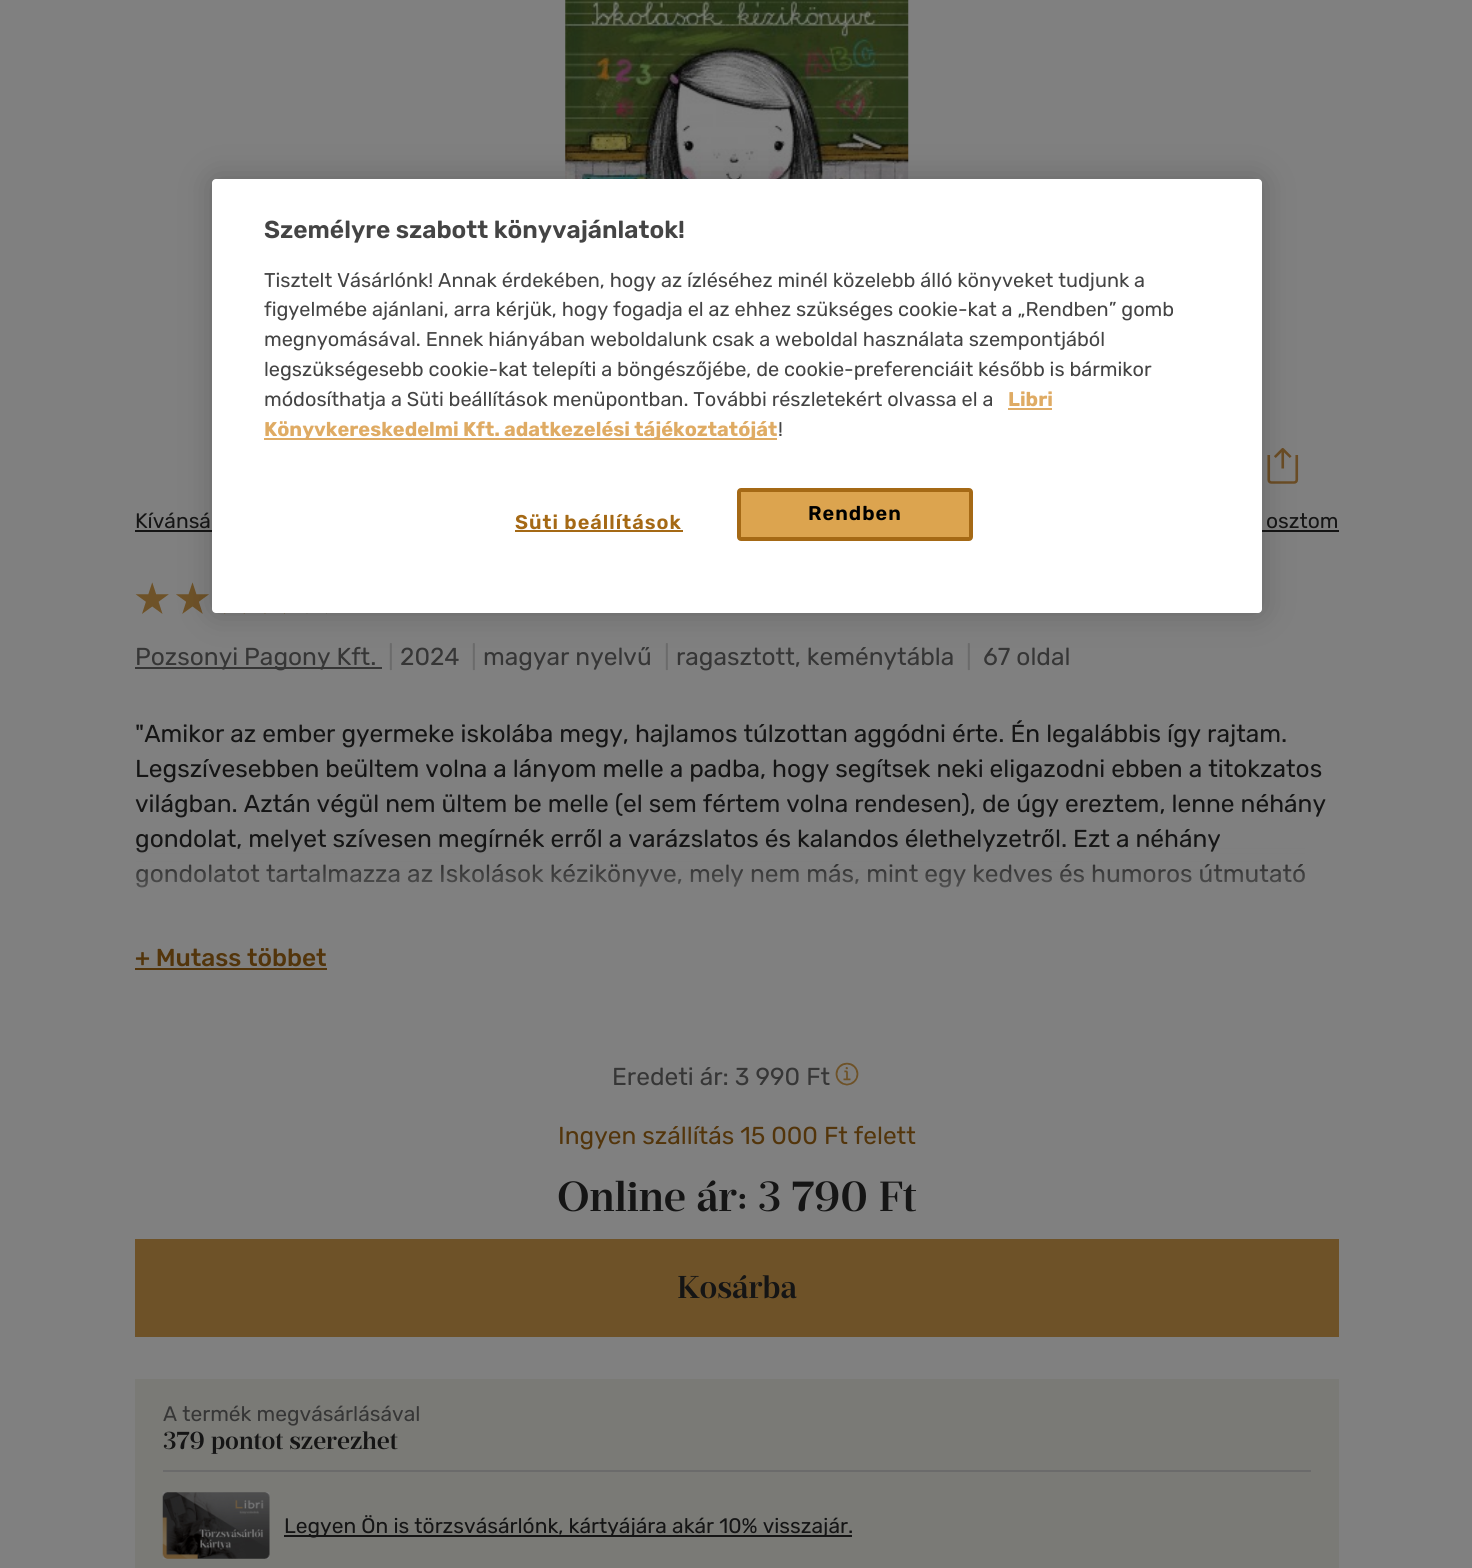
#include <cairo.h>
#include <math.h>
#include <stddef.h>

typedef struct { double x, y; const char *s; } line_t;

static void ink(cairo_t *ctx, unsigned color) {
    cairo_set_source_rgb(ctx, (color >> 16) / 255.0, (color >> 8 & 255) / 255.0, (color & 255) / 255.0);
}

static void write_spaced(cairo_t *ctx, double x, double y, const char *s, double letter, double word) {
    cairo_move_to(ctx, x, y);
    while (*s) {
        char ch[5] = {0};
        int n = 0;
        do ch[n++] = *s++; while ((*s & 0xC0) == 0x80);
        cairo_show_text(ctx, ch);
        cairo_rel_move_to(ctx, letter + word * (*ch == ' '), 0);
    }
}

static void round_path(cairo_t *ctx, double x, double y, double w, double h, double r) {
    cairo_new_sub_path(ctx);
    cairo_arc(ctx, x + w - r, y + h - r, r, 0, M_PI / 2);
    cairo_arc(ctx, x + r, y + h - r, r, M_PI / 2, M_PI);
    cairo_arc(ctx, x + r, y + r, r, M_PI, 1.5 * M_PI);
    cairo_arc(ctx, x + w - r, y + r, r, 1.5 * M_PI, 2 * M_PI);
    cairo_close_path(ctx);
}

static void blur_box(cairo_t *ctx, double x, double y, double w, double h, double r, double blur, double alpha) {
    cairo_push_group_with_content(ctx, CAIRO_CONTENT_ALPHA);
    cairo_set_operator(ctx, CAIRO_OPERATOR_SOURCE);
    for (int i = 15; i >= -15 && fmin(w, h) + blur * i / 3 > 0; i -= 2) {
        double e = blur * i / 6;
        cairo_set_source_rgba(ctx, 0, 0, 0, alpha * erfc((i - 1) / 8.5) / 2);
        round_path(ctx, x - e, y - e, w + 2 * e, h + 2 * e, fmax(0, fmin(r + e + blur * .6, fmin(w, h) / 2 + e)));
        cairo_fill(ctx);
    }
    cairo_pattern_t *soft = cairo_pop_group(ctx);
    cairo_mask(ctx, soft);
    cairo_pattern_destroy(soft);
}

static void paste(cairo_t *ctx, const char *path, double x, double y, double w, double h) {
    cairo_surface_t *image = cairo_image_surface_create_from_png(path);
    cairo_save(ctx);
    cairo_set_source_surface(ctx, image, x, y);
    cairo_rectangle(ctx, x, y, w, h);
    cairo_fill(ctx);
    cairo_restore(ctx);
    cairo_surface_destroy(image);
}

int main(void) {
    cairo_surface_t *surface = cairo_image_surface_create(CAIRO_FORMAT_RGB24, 1472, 1568);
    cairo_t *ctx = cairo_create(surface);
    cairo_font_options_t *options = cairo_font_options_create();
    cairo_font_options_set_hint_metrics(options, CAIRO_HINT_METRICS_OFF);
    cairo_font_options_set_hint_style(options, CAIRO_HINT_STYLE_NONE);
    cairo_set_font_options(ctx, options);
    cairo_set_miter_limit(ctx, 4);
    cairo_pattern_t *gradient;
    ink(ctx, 0x808080);
    cairo_paint(ctx);
    paste(ctx, "media/1.png", 565, 0, 344, 179);
    ink(ctx, 0x151515);
    cairo_rectangle(ctx, 135, 530, 77, 2);
    cairo_fill(ctx);
    paste(ctx, "media/2.png", 1267, 448, 32, 36);
    cairo_rectangle(ctx, 1262, 530, 77, 2);
    cairo_fill(ctx);
    paste(ctx, "media/3.png", 135, 582, 34, 32);
    paste(ctx, "media/4.png", 176, 582, 33, 32);
    paste(ctx, "media/5.png", 224, 613, 21, 1);
    paste(ctx, "media/6.png", 264, 613, 21, 1);
    paste(ctx, "media/7.png", 306, 613, 21, 1);
    ink(ctx, 0x000000);
    blur_box(ctx, 212, 179, 1050, 434, 4, 16, 0.2);
    ink(ctx, 0xFFFFFF);
    round_path(ctx, 212, 179, 1050, 434, 4);
    cairo_fill(ctx);
    cairo_select_font_face(ctx, "Rubik SemiBold", CAIRO_FONT_SLANT_NORMAL, CAIRO_FONT_WEIGHT_NORMAL);
    cairo_set_font_size(ctx, 24.5);
    ink(ctx, 0x444444);
    cairo_move_to(ctx, 264, 238);
    cairo_show_text(ctx, "Személyre szabott könyvajánlatok!");
    cairo_select_font_face(ctx, "Rubik", CAIRO_FONT_SLANT_NORMAL, CAIRO_FONT_WEIGHT_NORMAL);
    cairo_set_font_size(ctx, 19.9);
    {
        static const line_t items[] = {
            {264, 287, "Tisztelt Vásárlónk! Annak érdekében, hogy az ízléséhez minél közelebb álló könyveket tudjunk a"},
            {264, 316, "figyelmébe ajánlani, arra kérjük, hogy fogadja el az ehhez szükséges cookie-kat a „Rendben” gomb"},
            {264, 346, "megnyomásával. Ennek hiányában weboldalunk csak a weboldal használata szempontjából"},
            {264, 376, "legszükségesebb cookie-kat telepíti a böngészőjébe, de cookie-preferenciáit később is bármikor"},
            {264, 406, "módosíthatja a Süti beállítások menüpontban. További részletekért olvassa el a"},
        };
        for (size_t i = 0; i < sizeof items / sizeof *items; i++) {
            cairo_move_to(ctx, items[i].x, items[i].y);
            cairo_show_text(ctx, items[i].s);
        }
    }
    cairo_select_font_face(ctx, "Rubik", CAIRO_FONT_SLANT_NORMAL, CAIRO_FONT_WEIGHT_BOLD);
    ink(ctx, 0xDFAB64);
    cairo_move_to(ctx, 1008, 406);
    cairo_show_text(ctx, "Libri");
    cairo_rectangle(ctx, 1008, 408, 44, 2);
    cairo_fill(ctx);
    cairo_rectangle(ctx, 264, 438, 513, 2);
    cairo_fill(ctx);
    cairo_move_to(ctx, 264, 436);
    cairo_show_text(ctx, "Könyvkereskedelmi Kft. adatkezelési tájékoztatóját");
    cairo_select_font_face(ctx, "Rubik", CAIRO_FONT_SLANT_NORMAL, CAIRO_FONT_WEIGHT_NORMAL);
    ink(ctx, 0x444444);
    cairo_move_to(ctx, 778, 436);
    cairo_show_text(ctx, "!");
    cairo_select_font_face(ctx, "Rubik SemiBold", CAIRO_FONT_SLANT_NORMAL, CAIRO_FONT_WEIGHT_NORMAL);
    ink(ctx, 0xA56915);
    write_spaced(ctx, 515, 529, "Süti beállítások", 1, 0);
    cairo_rectangle(ctx, 515, 530, 168, 2);
    cairo_fill(ctx);
    ink(ctx, 0xDCA44F);
    round_path(ctx, 739, 490, 232, 49, 2);
    cairo_fill_preserve(ctx);
    ink(ctx, 0xA56915);
    cairo_set_line_width(ctx, 4);
    cairo_stroke(ctx);
    ink(ctx, 0x000000);
    write_spaced(ctx, 808, 520, "Rendben", 1, 0);
    cairo_select_font_face(ctx, "Rubik", CAIRO_FONT_SLANT_NORMAL, CAIRO_FONT_WEIGHT_NORMAL);
    cairo_set_font_size(ctx, 21);
    ink(ctx, 0x151515);
    cairo_move_to(ctx, 135, 528);
    cairo_show_text(ctx, "Kívánsá");
    cairo_move_to(ctx, 1266, 528);
    cairo_show_text(ctx, "osztom");
    ink(ctx, 0x363636);
    cairo_rectangle(ctx, 135, 667, 247, 2);
    cairo_fill(ctx);
    cairo_set_font_size(ctx, 24.5);
    cairo_move_to(ctx, 135, 665);
    cairo_show_text(ctx, "Pozsonyi Pagony Kft.");
    ink(ctx, 0x6B6B6B);
    cairo_move_to(ctx, 388, 665);
    cairo_show_text(ctx, "|");
    ink(ctx, 0x363636);
    cairo_move_to(ctx, 400, 665);
    cairo_show_text(ctx, "2024");
    ink(ctx, 0x6B6B6B);
    cairo_move_to(ctx, 471, 665);
    cairo_show_text(ctx, "|");
    ink(ctx, 0x363636);
    cairo_move_to(ctx, 483, 665);
    cairo_show_text(ctx, "magyar nyelvű");
    ink(ctx, 0x6B6B6B);
    cairo_move_to(ctx, 664, 665);
    cairo_show_text(ctx, "|");
    ink(ctx, 0x363636);
    cairo_move_to(ctx, 676, 665);
    cairo_show_text(ctx, "ragasztott, keménytábla");
    ink(ctx, 0x6B6B6B);
    cairo_move_to(ctx, 966, 665);
    cairo_show_text(ctx, "|");
    ink(ctx, 0x363636);
    cairo_move_to(ctx, 983, 665);
    cairo_show_text(ctx, "67 oldal");
    ink(ctx, 0x151515);
    {
        static const line_t items[] = {
            {135, 742, "\"Amikor az ember gyermeke iskolába megy, hajlamos túlzottan aggódni érte. Én legalábbis így rajtam."},
            {135, 777, "Legszívesebben beültem volna a lányom melle a padba, hogy segítsek neki eligazodni ebben a titokzatos"},
            {135, 812, "világban. Aztán végül nem ültem be melle (el sem fértem volna rendesen), de úgy ereztem, lenne néhány"},
            {135, 847, "gondolat, melyet szívesen megírnék erről a varázslatos és kalandos élethelyzetről. Ezt a néhány"},
            {135, 882, "gondolatot tartalmazza az Iskolások kézikönyve, mely nem más, mint egy kedves és humoros útmutató"},
        };
        for (size_t i = 0; i < sizeof items / sizeof *items; i++) {
            cairo_move_to(ctx, items[i].x, items[i].y);
            cairo_show_text(ctx, items[i].s);
        }
    }
    gradient = cairo_pattern_create_linear(737, 928, 737, 718);
    cairo_pattern_add_color_stop_rgba(gradient, 0.1, 0.502, 0.502, 0.502, 0.8);
    cairo_pattern_add_color_stop_rgba(gradient, 0.4, 0.502, 0.502, 0.502, 0);
    cairo_set_source(ctx, gradient);
    cairo_pattern_destroy(gradient);
    cairo_rectangle(ctx, 136, 846, 1169, 42);
    cairo_fill(ctx);
    cairo_select_font_face(ctx, "Rubik Medium", CAIRO_FONT_SLANT_NORMAL, CAIRO_FONT_WEIGHT_NORMAL);
    ink(ctx, 0x53350B);
    cairo_move_to(ctx, 135, 966);
    cairo_show_text(ctx, "+ Mutass többet");
    cairo_rectangle(ctx, 135, 968, 192, 2);
    cairo_fill(ctx);
    cairo_select_font_face(ctx, "Rubik", CAIRO_FONT_SLANT_NORMAL, CAIRO_FONT_WEIGHT_NORMAL);
    ink(ctx, 0x363636);
    cairo_move_to(ctx, 612, 1085);
    cairo_show_text(ctx, "Eredeti ár: 3 990 Ft");
    paste(ctx, "media/8.png", 835, 1062, 24, 24);
    ink(ctx, 0x53350B);
    cairo_move_to(ctx, 558, 1144);
    cairo_show_text(ctx, "Ingyen szállítás 15 000 Ft felett");
    cairo_select_font_face(ctx, "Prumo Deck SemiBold", CAIRO_FONT_SLANT_NORMAL, CAIRO_FONT_WEIGHT_NORMAL);
    cairo_set_font_size(ctx, 42);
    ink(ctx, 0x151515);
    cairo_move_to(ctx, 557, 1211);
    cairo_show_text(ctx, "Online ár: 3 790 Ft");
    ink(ctx, 0x6E5228);
    cairo_rectangle(ctx, 135, 1239, 1204, 98);
    cairo_fill(ctx);
    cairo_set_font_size(ctx, 31.5);
    ink(ctx, 0x151515);
    cairo_move_to(ctx, 677, 1298);
    cairo_show_text(ctx, "Kosárba");
    ink(ctx, 0x7A7A76);
    cairo_rectangle(ctx, 135, 1379, 1204, 189);
    cairo_fill(ctx);
    cairo_select_font_face(ctx, "Rubik", CAIRO_FONT_SLANT_NORMAL, CAIRO_FONT_WEIGHT_NORMAL);
    cairo_set_font_size(ctx, 21);
    ink(ctx, 0x363636);
    cairo_move_to(ctx, 163, 1421);
    cairo_show_text(ctx, "A termék megvásárlásával");
    cairo_select_font_face(ctx, "Prumo Deck SemiBold", CAIRO_FONT_SLANT_NORMAL, CAIRO_FONT_WEIGHT_NORMAL);
    cairo_set_font_size(ctx, 24.5);
    ink(ctx, 0x151515);
    cairo_move_to(ctx, 163, 1449);
    cairo_show_text(ctx, "379 pontot szerezhet");
    ink(ctx, 0x6B6B6B);
    cairo_rectangle(ctx, 163, 1470, 1148, 2);
    cairo_fill(ctx);
    paste(ctx, "media/9.png", 162, 1492, 108, 67);
    ink(ctx, 0x151515);
    cairo_rectangle(ctx, 284, 1535, 568, 2);
    cairo_fill(ctx);
    cairo_select_font_face(ctx, "Rubik", CAIRO_FONT_SLANT_NORMAL, CAIRO_FONT_WEIGHT_NORMAL);
    cairo_set_font_size(ctx, 21);
    cairo_move_to(ctx, 284, 1533);
    cairo_show_text(ctx, "Legyen Ön is törzsvásárlónk, kártyájára akár 10% visszajár.");
    cairo_surface_write_to_png(surface, "image.png");
    cairo_font_options_destroy(options);
    cairo_destroy(ctx);
    cairo_surface_destroy(surface);
    return 0;
}
